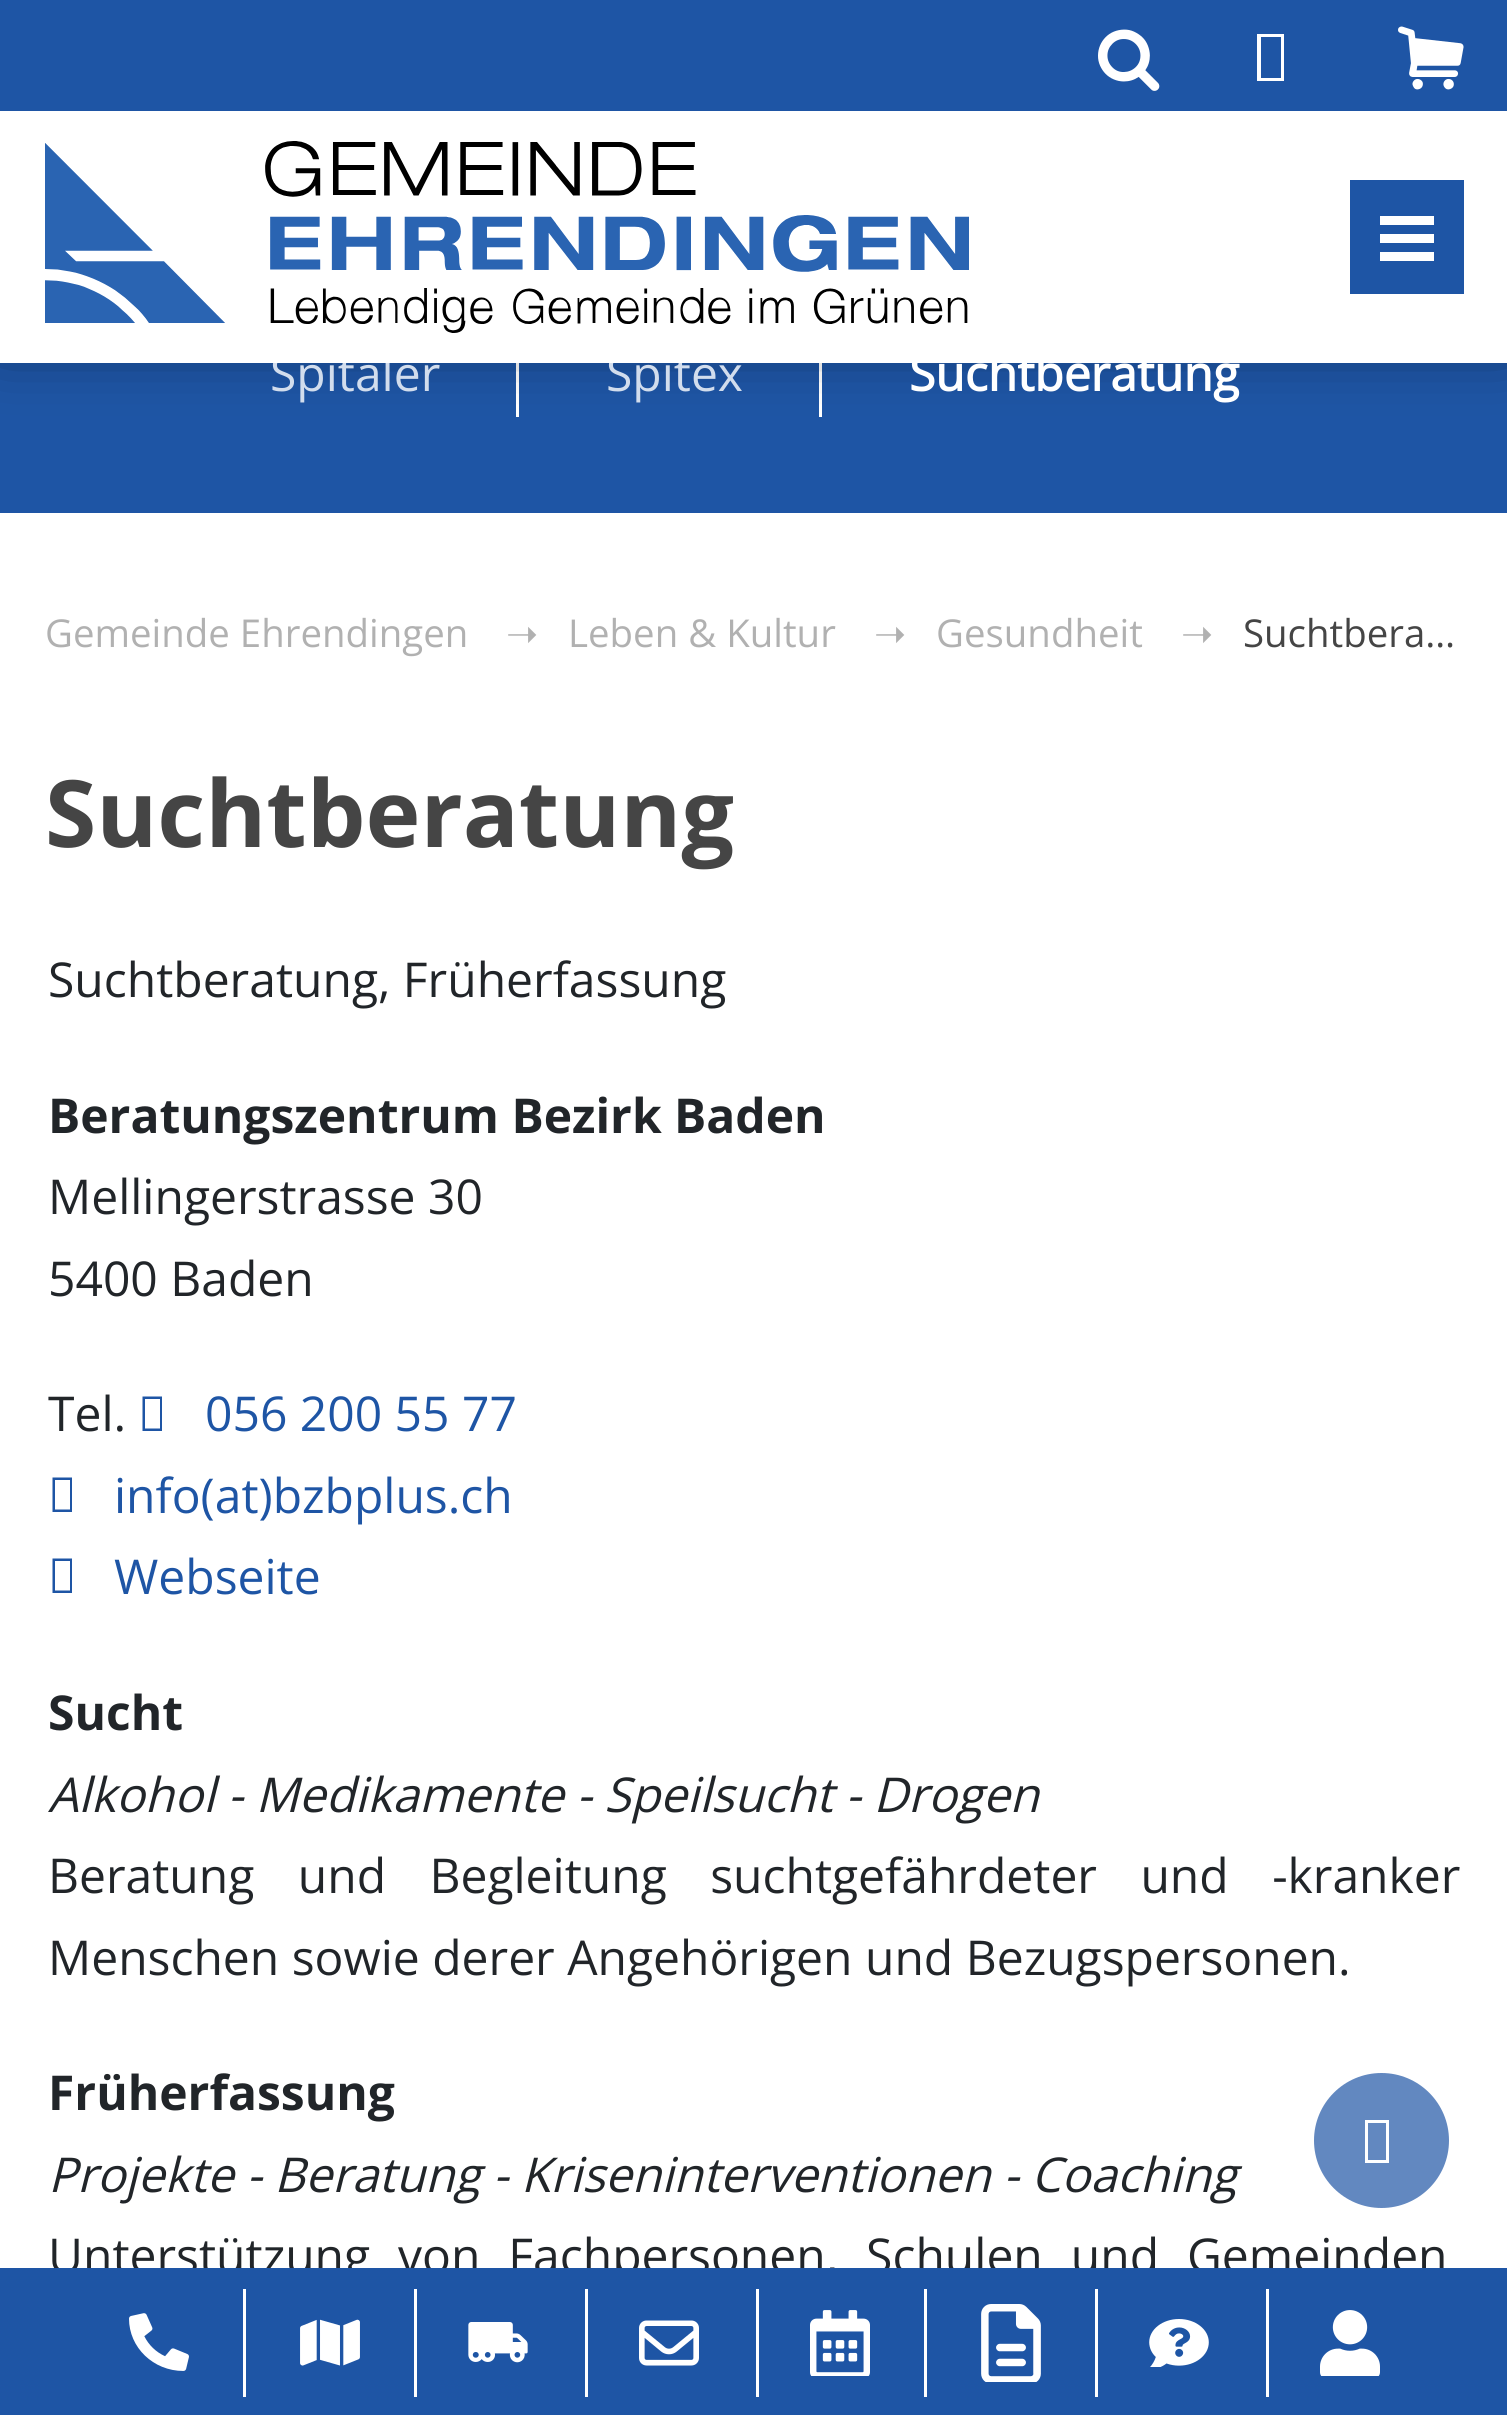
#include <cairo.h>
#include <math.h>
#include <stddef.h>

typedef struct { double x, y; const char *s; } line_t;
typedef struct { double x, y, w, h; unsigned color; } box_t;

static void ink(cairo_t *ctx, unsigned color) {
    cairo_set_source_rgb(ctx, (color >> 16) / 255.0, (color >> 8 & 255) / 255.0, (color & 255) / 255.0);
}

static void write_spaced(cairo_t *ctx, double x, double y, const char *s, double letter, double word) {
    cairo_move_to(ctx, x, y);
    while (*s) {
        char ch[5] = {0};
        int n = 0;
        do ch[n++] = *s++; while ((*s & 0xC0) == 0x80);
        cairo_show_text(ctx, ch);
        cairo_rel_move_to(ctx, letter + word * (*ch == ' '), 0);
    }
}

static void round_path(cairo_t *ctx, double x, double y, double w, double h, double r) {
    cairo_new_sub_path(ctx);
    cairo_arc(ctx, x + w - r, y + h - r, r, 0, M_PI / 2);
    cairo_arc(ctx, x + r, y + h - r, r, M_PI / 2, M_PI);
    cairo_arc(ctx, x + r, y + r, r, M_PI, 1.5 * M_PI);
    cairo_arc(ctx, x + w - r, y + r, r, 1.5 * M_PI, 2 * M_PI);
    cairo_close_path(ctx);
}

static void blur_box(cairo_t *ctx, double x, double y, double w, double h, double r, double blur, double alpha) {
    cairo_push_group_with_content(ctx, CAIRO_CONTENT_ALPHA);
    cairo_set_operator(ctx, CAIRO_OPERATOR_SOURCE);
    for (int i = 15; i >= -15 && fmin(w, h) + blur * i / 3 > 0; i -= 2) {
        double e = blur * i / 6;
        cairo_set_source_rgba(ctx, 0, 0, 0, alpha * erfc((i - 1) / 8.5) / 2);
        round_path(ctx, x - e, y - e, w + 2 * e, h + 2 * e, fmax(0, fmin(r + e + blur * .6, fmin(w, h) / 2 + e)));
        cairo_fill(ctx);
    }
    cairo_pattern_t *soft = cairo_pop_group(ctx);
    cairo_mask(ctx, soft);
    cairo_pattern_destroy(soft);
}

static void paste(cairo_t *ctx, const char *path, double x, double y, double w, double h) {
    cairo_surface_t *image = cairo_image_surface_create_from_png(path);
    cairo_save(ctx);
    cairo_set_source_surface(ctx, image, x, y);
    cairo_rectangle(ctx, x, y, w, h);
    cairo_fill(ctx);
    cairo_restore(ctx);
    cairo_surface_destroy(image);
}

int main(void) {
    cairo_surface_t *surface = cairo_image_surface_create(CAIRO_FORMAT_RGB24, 1507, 2416);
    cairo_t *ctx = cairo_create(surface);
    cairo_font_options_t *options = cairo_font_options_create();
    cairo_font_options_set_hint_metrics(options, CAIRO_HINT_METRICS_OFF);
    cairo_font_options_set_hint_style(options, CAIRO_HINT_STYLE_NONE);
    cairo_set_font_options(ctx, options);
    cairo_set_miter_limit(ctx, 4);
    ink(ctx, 0xFFFFFF);
    cairo_paint(ctx);
    {
        static const box_t items[] = {
            {0, 363, 1507, 150, 0x1E55A5},
            {516, 363, 3, 54, 0xFFFFFF},
            {819, 363, 3, 54, 0xFFFFFF},
        };
        for (size_t i = 0; i < sizeof items / sizeof *items; i++) {
            ink(ctx, items[i].color);
            cairo_rectangle(ctx, items[i].x, items[i].y, items[i].w, items[i].h);
            cairo_fill(ctx);
        }
    }
    ink(ctx, 0x000000);
    blur_box(ctx, 0, -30, 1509, 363, 0, 33, 0.75);
    cairo_select_font_face(ctx, "Open Sans", CAIRO_FONT_SLANT_NORMAL, CAIRO_FONT_WEIGHT_NORMAL);
    cairo_set_font_size(ctx, 48);
    ink(ctx, 0xD2DDED);
    cairo_move_to(ctx, 270, 391);
    cairo_show_text(ctx, "Spitäler");
    cairo_move_to(ctx, 606, 391);
    cairo_show_text(ctx, "Spitex");
    ink(ctx, 0xFFFFFF);
    cairo_rectangle(ctx, 0, 111, 1507, 252);
    cairo_fill(ctx);
    ink(ctx, 0x1E55A5);
    cairo_rectangle(ctx, 0, 0, 1507, 111);
    cairo_fill(ctx);
    paste(ctx, "media/1.png", 1098, 29, 62, 62);
    ink(ctx, 0xFFFFFF);
    cairo_new_path(ctx);
    cairo_move_to(ctx, 1257, 81);
    cairo_line_to(ctx, 1257, 34);
    cairo_line_to(ctx, 1284, 34);
    cairo_line_to(ctx, 1284, 81);
    cairo_close_path(ctx);
    cairo_move_to(ctx, 1261, 78);
    cairo_line_to(ctx, 1281, 78);
    cairo_line_to(ctx, 1281, 37);
    cairo_line_to(ctx, 1261, 37);
    cairo_close_path(ctx);
    cairo_fill(ctx);
    paste(ctx, "media/2.png", 1398, 26, 66, 64);
    paste(ctx, "media/3.png", 45, 141, 924, 192);
    {
        static const box_t items[] = {
            {1350, 180, 114, 114, 0x1E55A5},
            {1380, 216, 54, 9, 0xFFFFFF},
            {1380, 234, 54, 9, 0xFFFFFF},
            {1380, 252, 54, 9, 0xFFFFFF},
        };
        for (size_t i = 0; i < sizeof items / sizeof *items; i++) {
            ink(ctx, items[i].color);
            cairo_rectangle(ctx, items[i].x, items[i].y, items[i].w, items[i].h);
            cairo_fill(ctx);
        }
    }
    cairo_select_font_face(ctx, "Open Sans", CAIRO_FONT_SLANT_NORMAL, CAIRO_FONT_WEIGHT_BOLD);
    cairo_move_to(ctx, 909, 391);
    cairo_show_text(ctx, "Suchtberatung");
    cairo_select_font_face(ctx, "Open Sans", CAIRO_FONT_SLANT_NORMAL, CAIRO_FONT_WEIGHT_NORMAL);
    cairo_set_font_size(ctx, 38.4);
    ink(ctx, 0xB1B1B1);
    cairo_move_to(ctx, 45, 647);
    cairo_show_text(ctx, "Gemeinde Ehrendingen");
    cairo_select_font_face(ctx, "DejaVu Sans", CAIRO_FONT_SLANT_NORMAL, CAIRO_FONT_WEIGHT_NORMAL);
    cairo_move_to(ctx, 506, 647);
    cairo_show_text(ctx, "➝");
    cairo_select_font_face(ctx, "Open Sans", CAIRO_FONT_SLANT_NORMAL, CAIRO_FONT_WEIGHT_NORMAL);
    cairo_move_to(ctx, 568, 647);
    cairo_show_text(ctx, "Leben & Kultur");
    cairo_select_font_face(ctx, "DejaVu Sans", CAIRO_FONT_SLANT_NORMAL, CAIRO_FONT_WEIGHT_NORMAL);
    cairo_move_to(ctx, 874, 647);
    cairo_show_text(ctx, "➝");
    cairo_select_font_face(ctx, "Open Sans", CAIRO_FONT_SLANT_NORMAL, CAIRO_FONT_WEIGHT_NORMAL);
    cairo_move_to(ctx, 936, 647);
    cairo_show_text(ctx, "Gesundheit");
    cairo_select_font_face(ctx, "DejaVu Sans", CAIRO_FONT_SLANT_NORMAL, CAIRO_FONT_WEIGHT_NORMAL);
    cairo_move_to(ctx, 1181, 647);
    cairo_show_text(ctx, "➝");
    cairo_select_font_face(ctx, "Open Sans", CAIRO_FONT_SLANT_NORMAL, CAIRO_FONT_WEIGHT_NORMAL);
    ink(ctx, 0x454545);
    cairo_move_to(ctx, 1243, 647);
    cairo_show_text(ctx, "Suchtbera…");
    cairo_select_font_face(ctx, "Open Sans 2", CAIRO_FONT_SLANT_NORMAL, CAIRO_FONT_WEIGHT_BOLD);
    cairo_set_font_size(ctx, 93);
    cairo_move_to(ctx, 45, 847);
    cairo_show_text(ctx, "Suchtberatung");
    cairo_select_font_face(ctx, "Open Sans", CAIRO_FONT_SLANT_NORMAL, CAIRO_FONT_WEIGHT_NORMAL);
    cairo_set_font_size(ctx, 48);
    ink(ctx, 0x212529);
    cairo_move_to(ctx, 48, 997);
    cairo_show_text(ctx, "Suchtberatung, Früherfassung");
    cairo_select_font_face(ctx, "Open Sans 2", CAIRO_FONT_SLANT_NORMAL, CAIRO_FONT_WEIGHT_BOLD);
    cairo_move_to(ctx, 48, 1133);
    cairo_show_text(ctx, "Beratungszentrum Bezirk Baden");
    cairo_select_font_face(ctx, "Open Sans", CAIRO_FONT_SLANT_NORMAL, CAIRO_FONT_WEIGHT_NORMAL);
    {
        static const line_t items[] = {
            {48, 1214, "Mellingerstrasse 30"},
            {48, 1296, "5400 Baden"},
            {48, 1431, "Tel."},
        };
        for (size_t i = 0; i < sizeof items / sizeof *items; i++) {
            cairo_move_to(ctx, items[i].x, items[i].y);
            cairo_show_text(ctx, items[i].s);
        }
    }
    ink(ctx, 0x1E55A5);
    cairo_new_path(ctx);
    cairo_move_to(ctx, 142.5, 1431);
    cairo_line_to(ctx, 142.5, 1396.5);
    cairo_line_to(ctx, 162, 1396.5);
    cairo_line_to(ctx, 162, 1431);
    cairo_close_path(ctx);
    cairo_move_to(ctx, 145, 1428.5);
    cairo_line_to(ctx, 160, 1428.5);
    cairo_line_to(ctx, 160, 1399);
    cairo_line_to(ctx, 145, 1399);
    cairo_close_path(ctx);
    cairo_fill(ctx);
    cairo_move_to(ctx, 205, 1431);
    cairo_show_text(ctx, "056 200 55 77");
    cairo_new_path(ctx);
    cairo_move_to(ctx, 52.5, 1512);
    cairo_line_to(ctx, 52.5, 1477.5);
    cairo_line_to(ctx, 72, 1477.5);
    cairo_line_to(ctx, 72, 1512);
    cairo_close_path(ctx);
    cairo_move_to(ctx, 55, 1509.5);
    cairo_line_to(ctx, 70, 1509.5);
    cairo_line_to(ctx, 70, 1480);
    cairo_line_to(ctx, 55, 1480);
    cairo_close_path(ctx);
    cairo_fill(ctx);
    cairo_move_to(ctx, 114, 1513);
    cairo_show_text(ctx, "info(at)bzbplus.ch");
    cairo_new_path(ctx);
    cairo_move_to(ctx, 52.5, 1593);
    cairo_line_to(ctx, 52.5, 1558.5);
    cairo_line_to(ctx, 72, 1558.5);
    cairo_line_to(ctx, 72, 1593);
    cairo_close_path(ctx);
    cairo_move_to(ctx, 55, 1590.5);
    cairo_line_to(ctx, 70, 1590.5);
    cairo_line_to(ctx, 70, 1561);
    cairo_line_to(ctx, 55, 1561);
    cairo_close_path(ctx);
    cairo_fill(ctx);
    cairo_move_to(ctx, 114, 1594);
    cairo_show_text(ctx, "Webseite");
    cairo_select_font_face(ctx, "Open Sans 2", CAIRO_FONT_SLANT_NORMAL, CAIRO_FONT_WEIGHT_BOLD);
    ink(ctx, 0x212529);
    cairo_move_to(ctx, 48, 1730);
    cairo_show_text(ctx, "Sucht");
    cairo_select_font_face(ctx, "Open Sans", CAIRO_FONT_SLANT_ITALIC, CAIRO_FONT_WEIGHT_NORMAL);
    cairo_move_to(ctx, 48, 1812);
    cairo_show_text(ctx, "Alkohol - Medikamente - Speilsucht - Drogen");
    cairo_select_font_face(ctx, "Open Sans", CAIRO_FONT_SLANT_NORMAL, CAIRO_FONT_WEIGHT_NORMAL);
    write_spaced(ctx, 48, 1893, "Beratung und Begleitung suchtgefährdeter und -kranker", 0, 31);
    cairo_move_to(ctx, 48, 1975);
    cairo_show_text(ctx, "Menschen sowie derer Angehörigen und Bezugspersonen.");
    cairo_select_font_face(ctx, "Open Sans 2", CAIRO_FONT_SLANT_NORMAL, CAIRO_FONT_WEIGHT_BOLD);
    cairo_move_to(ctx, 48, 2110);
    cairo_show_text(ctx, "Früherfassung");
    cairo_select_font_face(ctx, "Open Sans", CAIRO_FONT_SLANT_ITALIC, CAIRO_FONT_WEIGHT_NORMAL);
    cairo_move_to(ctx, 48, 2192);
    cairo_show_text(ctx, "Projekte - Beratung - Kriseninterventionen - Coaching");
    cairo_select_font_face(ctx, "Open Sans", CAIRO_FONT_SLANT_NORMAL, CAIRO_FONT_WEIGHT_NORMAL);
    write_spaced(ctx, 48, 2273, "Unterstützung von Fachpersonen, Schulen und Gemeinden", 0, 15.5);
    ink(ctx, 0x6288C0);
    cairo_new_path(ctx);
    cairo_arc(ctx, 1381.5, 2140.5, 67.5, 0, 2 * M_PI);
    cairo_fill(ctx);
    ink(ctx, 0xFFFFFF);
    cairo_new_path(ctx);
    cairo_move_to(ctx, 1365, 2163);
    cairo_line_to(ctx, 1365, 2120);
    cairo_line_to(ctx, 1389, 2120);
    cairo_line_to(ctx, 1389, 2163);
    cairo_close_path(ctx);
    cairo_move_to(ctx, 1368, 2160);
    cairo_line_to(ctx, 1386, 2160);
    cairo_line_to(ctx, 1386, 2123);
    cairo_line_to(ctx, 1368, 2123);
    cairo_close_path(ctx);
    cairo_fill(ctx);
    ink(ctx, 0x1E55A5);
    cairo_rectangle(ctx, 0, 2268, 1507, 147);
    cairo_fill(ctx);
    paste(ctx, "media/4.png", 129, 2313, 60, 58);
    paste(ctx, "media/5.png", 300, 2319, 60, 47);
    ink(ctx, 0xFFFFFF);
    cairo_rectangle(ctx, 243, 2289, 3, 108);
    cairo_fill(ctx);
    paste(ctx, "media/6.png", 468, 2322, 60, 41);
    cairo_rectangle(ctx, 414, 2289, 3, 108);
    cairo_fill(ctx);
    paste(ctx, "media/7.png", 639, 2320, 60, 46);
    cairo_rectangle(ctx, 585, 2289, 3, 108);
    cairo_fill(ctx);
    paste(ctx, "media/8.png", 810, 2310, 60, 66);
    cairo_rectangle(ctx, 756, 2289, 3, 108);
    cairo_fill(ctx);
    paste(ctx, "media/9.png", 981, 2304, 60, 78);
    cairo_rectangle(ctx, 924, 2289, 3, 108);
    cairo_fill(ctx);
    paste(ctx, "media/10.png", 1149, 2319, 60, 48);
    cairo_rectangle(ctx, 1095, 2289, 3, 108);
    cairo_fill(ctx);
    paste(ctx, "media/11.png", 1320, 2310, 60, 66);
    cairo_rectangle(ctx, 1266, 2289, 3, 108);
    cairo_fill(ctx);
    cairo_surface_write_to_png(surface, "image.png");
    cairo_font_options_destroy(options);
    cairo_destroy(ctx);
    cairo_surface_destroy(surface);
    return 0;
}
